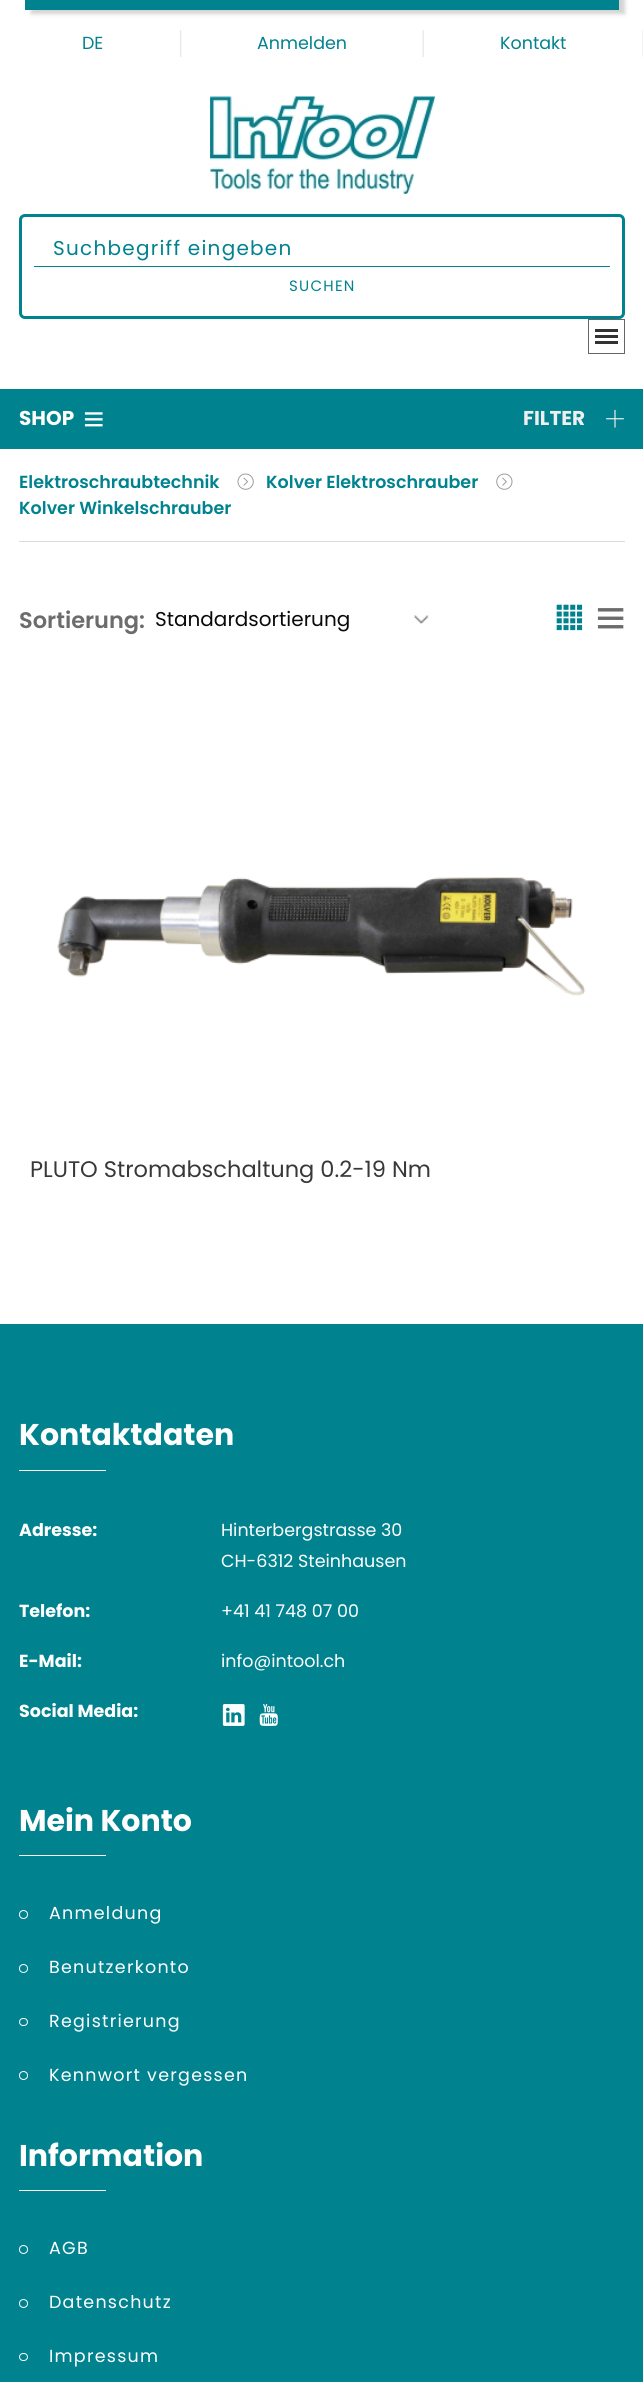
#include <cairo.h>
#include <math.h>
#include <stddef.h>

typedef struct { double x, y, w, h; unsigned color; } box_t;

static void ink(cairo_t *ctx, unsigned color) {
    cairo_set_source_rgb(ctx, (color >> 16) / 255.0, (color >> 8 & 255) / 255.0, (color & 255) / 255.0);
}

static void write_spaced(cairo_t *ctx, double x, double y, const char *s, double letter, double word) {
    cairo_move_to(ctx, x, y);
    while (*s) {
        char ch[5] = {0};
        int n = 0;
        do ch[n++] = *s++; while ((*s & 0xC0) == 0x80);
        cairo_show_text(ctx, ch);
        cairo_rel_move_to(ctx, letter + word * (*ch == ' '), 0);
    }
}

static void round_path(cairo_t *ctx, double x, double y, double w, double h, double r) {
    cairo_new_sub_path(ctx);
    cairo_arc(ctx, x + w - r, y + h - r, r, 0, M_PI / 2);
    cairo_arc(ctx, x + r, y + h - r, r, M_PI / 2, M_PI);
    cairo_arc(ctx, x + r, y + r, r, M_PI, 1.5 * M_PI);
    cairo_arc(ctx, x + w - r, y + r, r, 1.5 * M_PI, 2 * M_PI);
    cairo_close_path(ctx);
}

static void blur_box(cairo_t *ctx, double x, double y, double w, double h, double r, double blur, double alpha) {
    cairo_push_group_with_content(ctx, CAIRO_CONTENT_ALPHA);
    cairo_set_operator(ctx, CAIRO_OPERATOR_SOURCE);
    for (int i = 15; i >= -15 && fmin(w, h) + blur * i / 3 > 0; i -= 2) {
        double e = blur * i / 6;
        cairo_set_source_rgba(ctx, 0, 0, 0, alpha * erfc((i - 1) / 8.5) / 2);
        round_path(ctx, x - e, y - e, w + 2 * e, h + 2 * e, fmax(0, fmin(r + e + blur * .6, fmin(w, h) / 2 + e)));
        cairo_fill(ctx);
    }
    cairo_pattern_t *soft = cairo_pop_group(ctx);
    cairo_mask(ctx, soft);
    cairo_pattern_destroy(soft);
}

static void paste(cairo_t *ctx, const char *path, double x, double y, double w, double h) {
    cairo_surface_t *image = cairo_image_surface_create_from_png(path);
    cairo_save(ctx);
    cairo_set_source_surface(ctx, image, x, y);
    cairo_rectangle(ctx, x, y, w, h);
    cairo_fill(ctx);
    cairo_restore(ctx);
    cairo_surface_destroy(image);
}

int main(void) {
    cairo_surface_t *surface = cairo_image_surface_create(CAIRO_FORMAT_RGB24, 643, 2382);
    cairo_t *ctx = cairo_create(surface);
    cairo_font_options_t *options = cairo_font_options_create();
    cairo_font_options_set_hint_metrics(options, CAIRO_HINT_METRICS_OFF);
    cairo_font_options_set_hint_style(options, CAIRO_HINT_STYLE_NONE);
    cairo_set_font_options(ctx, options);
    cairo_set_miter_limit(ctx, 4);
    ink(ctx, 0xFFFFFF);
    cairo_paint(ctx);
    ink(ctx, 0xD3D3D3);
    blur_box(ctx, 31, -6, 594, 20, 0, 2, 1);
    ink(ctx, 0x00828F);
    cairo_rectangle(ctx, 25, 0, 594, 10);
    cairo_fill(ctx);
    paste(ctx, "media/1.png", 180, 30, 2, 27);
    cairo_select_font_face(ctx, "Poppins", CAIRO_FONT_SLANT_NORMAL, CAIRO_FONT_WEIGHT_NORMAL);
    cairo_set_font_size(ctx, 17.5);
    cairo_move_to(ctx, 82, 49);
    cairo_show_text(ctx, "DE");
    paste(ctx, "media/2.png", 422, 30, 2, 27);
    cairo_move_to(ctx, 257, 49);
    cairo_show_text(ctx, "Anmelden");
    ink(ctx, 0xF3F3F3);
    cairo_rectangle(ctx, 642, 30, 1, 27);
    cairo_fill(ctx);
    ink(ctx, 0x00828F);
    cairo_move_to(ctx, 500, 49);
    cairo_show_text(ctx, "Kontakt");
    paste(ctx, "media/3.png", 210, 96, 225, 98);
    round_path(ctx, 20.5, 215.5, 603, 102, 4.5);
    cairo_set_line_width(ctx, 3);
    cairo_stroke(ctx);
    cairo_set_font_size(ctx, 20);
    write_spaced(ctx, 53, 255, "Suchbegriff eingeben", 1.25, 0);
    cairo_rectangle(ctx, 34, 266, 576, 1);
    cairo_fill(ctx);
    cairo_set_font_size(ctx, 15);
    write_spaced(ctx, 289, 291, "SUCHEN", 1.25, 0);
    cairo_rectangle(ctx, 588.5, 319.5, 36, 34);
    ink(ctx, 0x666666);
    cairo_set_line_width(ctx, 1);
    cairo_stroke(ctx);
    {
        static const box_t items[] = {
            {595, 329, 23, 3, 0x333333},
            {595, 335, 23, 3, 0x333333},
            {595, 341, 23, 3, 0x333333},
            {0, 389, 643, 60, 0x00828F},
        };
        for (size_t i = 0; i < sizeof items / sizeof *items; i++) {
            ink(ctx, items[i].color);
            cairo_rectangle(ctx, items[i].x, items[i].y, items[i].w, items[i].h);
            cairo_fill(ctx);
        }
    }
    cairo_select_font_face(ctx, "Poppins", CAIRO_FONT_SLANT_NORMAL, CAIRO_FONT_WEIGHT_BOLD);
    cairo_set_font_size(ctx, 20);
    ink(ctx, 0xFFFFFF);
    cairo_move_to(ctx, 19, 425);
    cairo_show_text(ctx, "SHOP");
    paste(ctx, "media/4.png", 84, 412, 19, 15);
    ink(ctx, 0xEFEFEF);
    cairo_move_to(ctx, 523, 425);
    cairo_show_text(ctx, "FILTER");
    paste(ctx, "media/5.png", 606, 409, 18, 19);
    ink(ctx, 0xDCDCDC);
    cairo_rectangle(ctx, 19, 541, 606, 1);
    cairo_fill(ctx);
    cairo_select_font_face(ctx, "Poppins SemiBold", CAIRO_FONT_SLANT_NORMAL, CAIRO_FONT_WEIGHT_NORMAL);
    cairo_set_font_size(ctx, 17.5);
    ink(ctx, 0x00828F);
    cairo_move_to(ctx, 19, 488);
    cairo_show_text(ctx, "Elektroschraubtechnik");
    paste(ctx, "media/6.png", 237, 473, 17, 17);
    cairo_move_to(ctx, 266, 488);
    cairo_show_text(ctx, "Kolver Elektroschrauber");
    paste(ctx, "media/7.png", 496, 473, 17, 17);
    cairo_move_to(ctx, 19, 514);
    cairo_show_text(ctx, "Kolver Winkelschrauber");
    cairo_set_font_size(ctx, 22.5);
    ink(ctx, 0x6C6C6C);
    cairo_move_to(ctx, 19, 628);
    cairo_show_text(ctx, "Sortierung:");
    paste(ctx, "media/8.png", 413, 615, 16, 9);
    cairo_select_font_face(ctx, "Poppins", CAIRO_FONT_SLANT_NORMAL, CAIRO_FONT_WEIGHT_NORMAL);
    cairo_set_font_size(ctx, 20);
    ink(ctx, 0x090909);
    cairo_move_to(ctx, 155, 626);
    cairo_show_text(ctx, "Standardsortierung");
    paste(ctx, "media/9.png", 556, 604, 27, 27);
    paste(ctx, "media/10.png", 597, 608, 27, 21);
    paste(ctx, "media/11.png", 57, 877, 529, 119);
    cairo_set_font_size(ctx, 22.5);
    ink(ctx, 0x383838);
    cairo_move_to(ctx, 30, 1177);
    cairo_show_text(ctx, "PLUTO Stromabschaltung 0.2-19 Nm");
    ink(ctx, 0x00828F);
    cairo_rectangle(ctx, 0, 1324, 643, 1058);
    cairo_fill(ctx);
    cairo_select_font_face(ctx, "Poppins", CAIRO_FONT_SLANT_NORMAL, CAIRO_FONT_WEIGHT_BOLD);
    cairo_set_font_size(ctx, 30);
    ink(ctx, 0xFFFFFF);
    cairo_move_to(ctx, 19, 1445);
    cairo_show_text(ctx, "Kontaktdaten");
    cairo_rectangle(ctx, 19, 1470, 87, 1);
    cairo_fill(ctx);
    cairo_set_font_size(ctx, 17.5);
    cairo_move_to(ctx, 19, 1536);
    cairo_show_text(ctx, "Adresse:");
    cairo_select_font_face(ctx, "Poppins", CAIRO_FONT_SLANT_NORMAL, CAIRO_FONT_WEIGHT_NORMAL);
    cairo_move_to(ctx, 221, 1536);
    cairo_show_text(ctx, "Hinterbergstrasse 30");
    cairo_move_to(ctx, 221, 1567);
    cairo_show_text(ctx, "CH-6312 Steinhausen");
    cairo_select_font_face(ctx, "Poppins", CAIRO_FONT_SLANT_NORMAL, CAIRO_FONT_WEIGHT_BOLD);
    cairo_move_to(ctx, 19, 1617);
    cairo_show_text(ctx, "Telefon:");
    cairo_select_font_face(ctx, "Poppins", CAIRO_FONT_SLANT_NORMAL, CAIRO_FONT_WEIGHT_NORMAL);
    cairo_move_to(ctx, 221, 1617);
    cairo_show_text(ctx, "+41 41 748 07 00");
    cairo_select_font_face(ctx, "Poppins", CAIRO_FONT_SLANT_NORMAL, CAIRO_FONT_WEIGHT_BOLD);
    cairo_move_to(ctx, 19, 1667);
    cairo_show_text(ctx, "E-Mail:");
    cairo_select_font_face(ctx, "Poppins", CAIRO_FONT_SLANT_NORMAL, CAIRO_FONT_WEIGHT_NORMAL);
    cairo_move_to(ctx, 221, 1667);
    cairo_show_text(ctx, "info@intool.ch");
    cairo_select_font_face(ctx, "Poppins", CAIRO_FONT_SLANT_NORMAL, CAIRO_FONT_WEIGHT_BOLD);
    cairo_move_to(ctx, 19, 1717);
    cairo_show_text(ctx, "Social Media:");
    paste(ctx, "media/12.png", 222, 1704, 23, 22);
    paste(ctx, "media/13.png", 259, 1704, 19, 22);
    cairo_set_font_size(ctx, 30);
    cairo_move_to(ctx, 19, 1831);
    cairo_show_text(ctx, "Mein Konto");
    cairo_rectangle(ctx, 19, 1855, 87, 1);
    cairo_fill(ctx);
    cairo_arc(ctx, 23.5, 1914.5, 4, 0, 2 * M_PI);
    cairo_stroke(ctx);
    cairo_select_font_face(ctx, "Poppins", CAIRO_FONT_SLANT_NORMAL, CAIRO_FONT_WEIGHT_NORMAL);
    cairo_set_font_size(ctx, 17.5);
    write_spaced(ctx, 49, 1919, "Anmeldung", 1.25, 0);
    cairo_new_path(ctx);
    cairo_arc(ctx, 23.5, 1968.5, 4, 0, 2 * M_PI);
    cairo_stroke(ctx);
    write_spaced(ctx, 49, 1973, "Benutzerkonto", 1.25, 0);
    round_path(ctx, 19.5, 2018.5, 8, 7, 3.5);
    cairo_stroke(ctx);
    write_spaced(ctx, 49, 2027, "Registrierung", 1.25, 0);
    cairo_new_path(ctx);
    cairo_arc(ctx, 23.5, 2075.5, 4, 0, 2 * M_PI);
    cairo_stroke(ctx);
    write_spaced(ctx, 49, 2081, "Kennwort vergessen", 1.25, 0);
    cairo_select_font_face(ctx, "Poppins", CAIRO_FONT_SLANT_NORMAL, CAIRO_FONT_WEIGHT_BOLD);
    cairo_set_font_size(ctx, 30);
    cairo_move_to(ctx, 19, 2166);
    cairo_show_text(ctx, "Information");
    cairo_rectangle(ctx, 19, 2190, 87, 1);
    cairo_fill(ctx);
    cairo_arc(ctx, 23.5, 2249.5, 4, 0, 2 * M_PI);
    cairo_stroke(ctx);
    cairo_select_font_face(ctx, "Poppins", CAIRO_FONT_SLANT_NORMAL, CAIRO_FONT_WEIGHT_NORMAL);
    cairo_set_font_size(ctx, 17.5);
    write_spaced(ctx, 49, 2254, "AGB", 1.25, 0);
    cairo_new_path(ctx);
    cairo_arc(ctx, 23.5, 2303.5, 4, 0, 2 * M_PI);
    cairo_stroke(ctx);
    write_spaced(ctx, 49, 2308, "Datenschutz", 1.25, 0);
    round_path(ctx, 19.5, 2353.5, 8, 7, 3.5);
    cairo_stroke(ctx);
    write_spaced(ctx, 49, 2362, "Impressum", 1.25, 0);
    cairo_surface_write_to_png(surface, "image.png");
    cairo_font_options_destroy(options);
    cairo_destroy(ctx);
    cairo_surface_destroy(surface);
    return 0;
}
